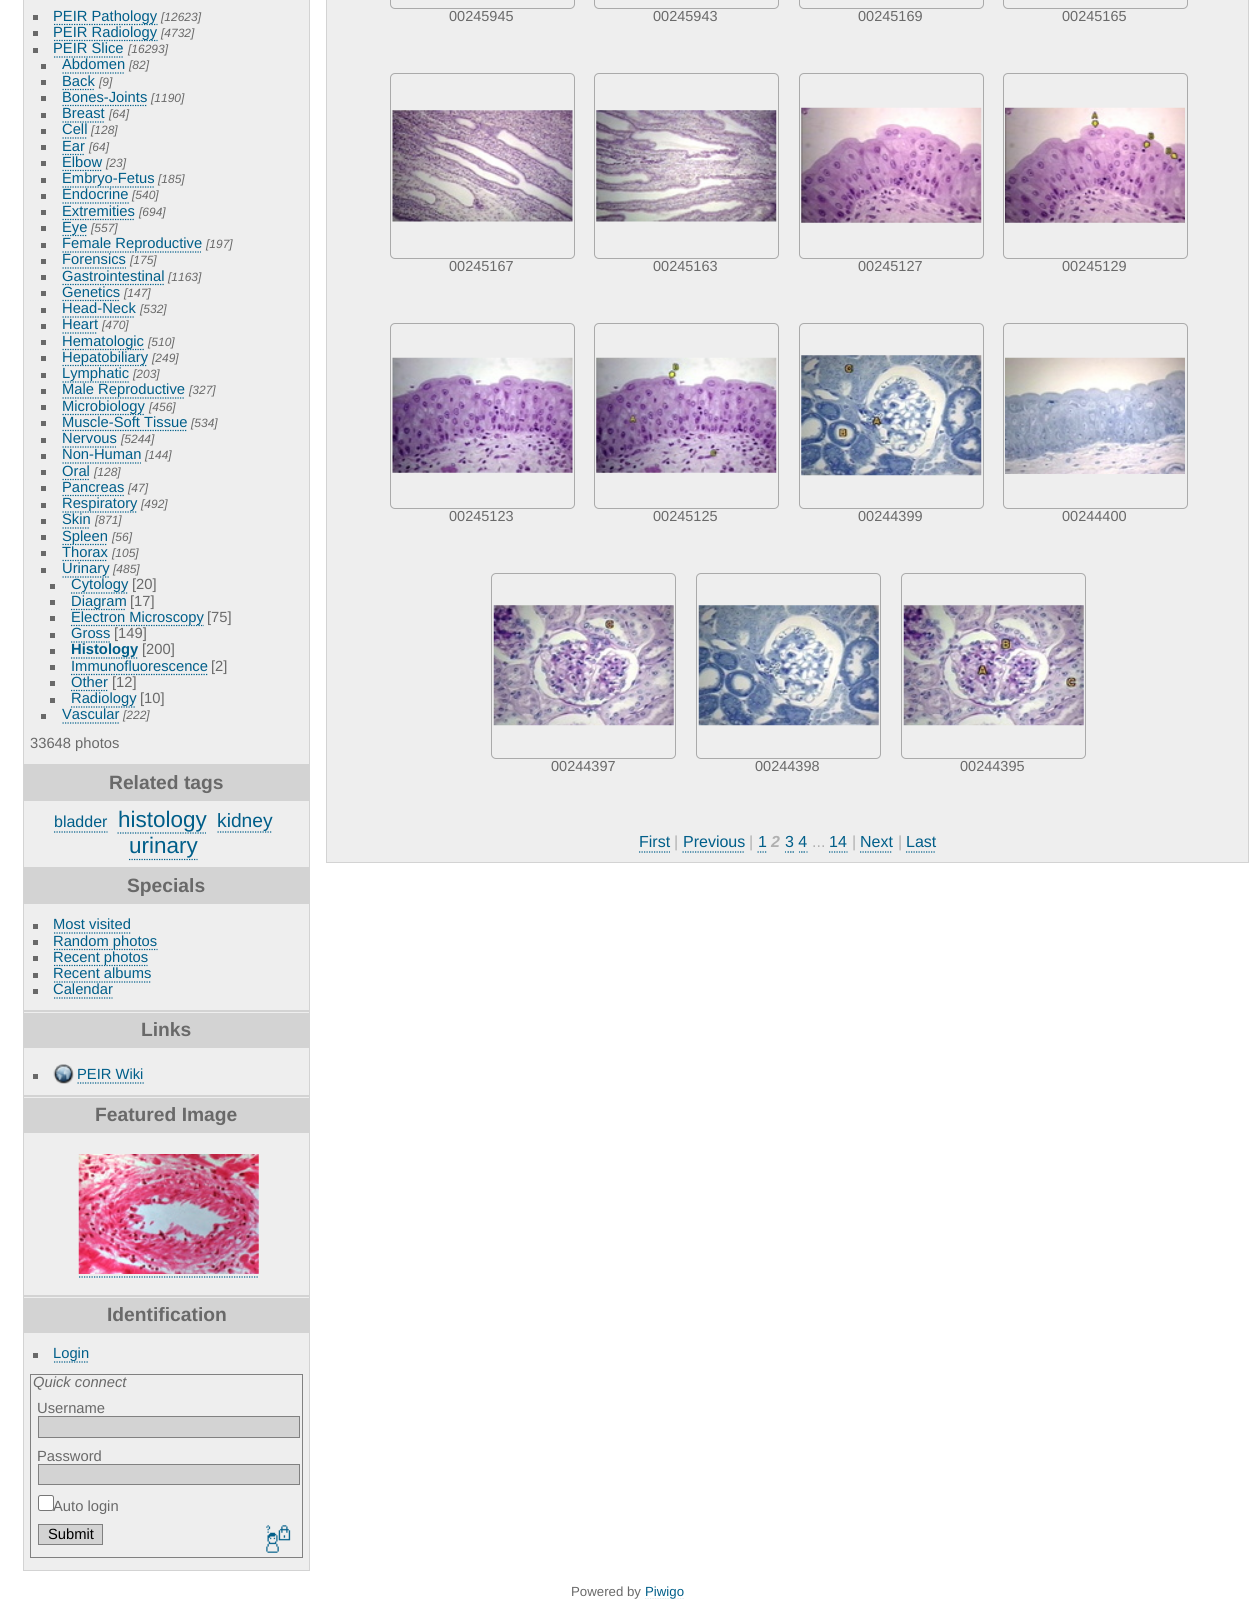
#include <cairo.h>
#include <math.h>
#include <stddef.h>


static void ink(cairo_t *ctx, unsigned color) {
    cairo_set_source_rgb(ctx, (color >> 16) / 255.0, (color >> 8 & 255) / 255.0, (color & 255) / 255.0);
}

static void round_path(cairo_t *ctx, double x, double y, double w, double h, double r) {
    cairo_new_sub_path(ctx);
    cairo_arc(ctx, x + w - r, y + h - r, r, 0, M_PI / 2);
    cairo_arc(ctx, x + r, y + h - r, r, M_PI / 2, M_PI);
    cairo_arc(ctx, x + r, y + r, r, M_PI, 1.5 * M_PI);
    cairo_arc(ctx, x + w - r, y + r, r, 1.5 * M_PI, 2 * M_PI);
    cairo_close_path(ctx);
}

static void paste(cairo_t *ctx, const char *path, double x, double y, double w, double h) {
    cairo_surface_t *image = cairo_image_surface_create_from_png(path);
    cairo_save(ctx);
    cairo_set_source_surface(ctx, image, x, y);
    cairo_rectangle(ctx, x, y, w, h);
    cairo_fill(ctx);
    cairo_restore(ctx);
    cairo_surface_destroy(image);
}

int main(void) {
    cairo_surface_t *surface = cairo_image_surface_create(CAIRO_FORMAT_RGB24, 1255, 1599);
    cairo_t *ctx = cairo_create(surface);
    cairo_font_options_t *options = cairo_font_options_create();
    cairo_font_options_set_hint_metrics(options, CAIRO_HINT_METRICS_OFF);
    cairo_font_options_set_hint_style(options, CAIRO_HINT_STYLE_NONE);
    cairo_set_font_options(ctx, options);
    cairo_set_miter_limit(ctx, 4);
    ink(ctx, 0xFFFFFF);
    cairo_paint(ctx);
    ink(ctx, 0xEEEEEE);
    cairo_rectangle(ctx, 23.5, -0.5, 286, 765);
    cairo_fill_preserve(ctx);
    ink(ctx, 0xD3D3D3);
    cairo_set_line_width(ctx, 1);
    cairo_stroke(ctx);
    ink(ctx, 0x696969);
    cairo_rectangle(ctx, 33, 15, 5, 5);
    cairo_fill(ctx);
    cairo_new_path(ctx);
    cairo_move_to(ctx, 54, 24.5);
    cairo_line_to(ctx, 157.5, 24.5);
    ink(ctx, 0x005E89);
    cairo_set_line_width(ctx, 1.2);
    cairo_set_dash(ctx, (double[]){1.25, 1.25}, 2, 0);
    cairo_stroke(ctx);
    cairo_select_font_face(ctx, "Liberation Sans", CAIRO_FONT_SLANT_NORMAL, CAIRO_FONT_WEIGHT_NORMAL);
    cairo_set_font_size(ctx, 14.75);
    cairo_move_to(ctx, 53, 21);
    cairo_show_text(ctx, "PEIR Pathology");
    cairo_select_font_face(ctx, "Liberation Sans", CAIRO_FONT_SLANT_ITALIC, CAIRO_FONT_WEIGHT_NORMAL);
    cairo_set_font_size(ctx, 12);
    ink(ctx, 0x696969);
    cairo_move_to(ctx, 161, 21);
    cairo_show_text(ctx, "[12623]");
    cairo_rectangle(ctx, 33, 31, 5, 5);
    cairo_fill(ctx);
    cairo_new_path(ctx);
    cairo_move_to(ctx, 54, 40.5);
    cairo_line_to(ctx, 157.5, 40.5);
    ink(ctx, 0x005E89);
    cairo_stroke(ctx);
    cairo_select_font_face(ctx, "Liberation Sans", CAIRO_FONT_SLANT_NORMAL, CAIRO_FONT_WEIGHT_NORMAL);
    cairo_set_font_size(ctx, 14.75);
    cairo_move_to(ctx, 53, 37);
    cairo_show_text(ctx, "PEIR Radiology");
    cairo_select_font_face(ctx, "Liberation Sans", CAIRO_FONT_SLANT_ITALIC, CAIRO_FONT_WEIGHT_NORMAL);
    cairo_set_font_size(ctx, 12);
    ink(ctx, 0x696969);
    cairo_move_to(ctx, 161, 37);
    cairo_show_text(ctx, "[4732]");
    cairo_rectangle(ctx, 33, 48, 5, 5);
    cairo_fill(ctx);
    cairo_select_font_face(ctx, "Liberation Sans", CAIRO_FONT_SLANT_NORMAL, CAIRO_FONT_WEIGHT_NORMAL);
    cairo_set_font_size(ctx, 14.75);
    ink(ctx, 0x005E89);
    cairo_move_to(ctx, 53, 53);
    cairo_show_text(ctx, "PEIR Slice");
    cairo_new_path(ctx);
    cairo_move_to(ctx, 54, 57);
    cairo_line_to(ctx, 124, 57);
    cairo_stroke(ctx);
    cairo_select_font_face(ctx, "Liberation Sans", CAIRO_FONT_SLANT_ITALIC, CAIRO_FONT_WEIGHT_NORMAL);
    cairo_set_font_size(ctx, 12);
    ink(ctx, 0x696969);
    cairo_move_to(ctx, 128, 53);
    cairo_show_text(ctx, "[16293]");
    cairo_rectangle(ctx, 41, 64, 5, 5);
    cairo_fill(ctx);
    cairo_select_font_face(ctx, "Liberation Sans", CAIRO_FONT_SLANT_NORMAL, CAIRO_FONT_WEIGHT_NORMAL);
    cairo_set_font_size(ctx, 14.75);
    ink(ctx, 0x005E89);
    cairo_move_to(ctx, 62, 69);
    cairo_show_text(ctx, "Abdomen");
    cairo_new_path(ctx);
    cairo_move_to(ctx, 62.5, 73);
    cairo_line_to(ctx, 125, 73);
    cairo_stroke(ctx);
    cairo_select_font_face(ctx, "Liberation Sans", CAIRO_FONT_SLANT_ITALIC, CAIRO_FONT_WEIGHT_NORMAL);
    cairo_set_font_size(ctx, 12);
    ink(ctx, 0x696969);
    cairo_move_to(ctx, 129, 69);
    cairo_show_text(ctx, "[82]");
    cairo_rectangle(ctx, 41, 80, 5, 5);
    cairo_fill(ctx);
    cairo_select_font_face(ctx, "Liberation Sans", CAIRO_FONT_SLANT_NORMAL, CAIRO_FONT_WEIGHT_NORMAL);
    cairo_set_font_size(ctx, 14.75);
    ink(ctx, 0x005E89);
    cairo_move_to(ctx, 62, 86);
    cairo_show_text(ctx, "Back");
    cairo_new_path(ctx);
    cairo_move_to(ctx, 62.5, 89.5);
    cairo_line_to(ctx, 95, 89.5);
    cairo_stroke(ctx);
    cairo_select_font_face(ctx, "Liberation Sans", CAIRO_FONT_SLANT_ITALIC, CAIRO_FONT_WEIGHT_NORMAL);
    cairo_set_font_size(ctx, 12);
    ink(ctx, 0x696969);
    cairo_move_to(ctx, 99, 86);
    cairo_show_text(ctx, "[9]");
    cairo_rectangle(ctx, 41, 96, 5, 5);
    cairo_fill(ctx);
    cairo_select_font_face(ctx, "Liberation Sans", CAIRO_FONT_SLANT_NORMAL, CAIRO_FONT_WEIGHT_NORMAL);
    cairo_set_font_size(ctx, 14.75);
    ink(ctx, 0x005E89);
    cairo_move_to(ctx, 62, 102);
    cairo_show_text(ctx, "Bones-Joints");
    cairo_new_path(ctx);
    cairo_move_to(ctx, 62.5, 105.5);
    cairo_line_to(ctx, 147.5, 105.5);
    cairo_stroke(ctx);
    cairo_select_font_face(ctx, "Liberation Sans", CAIRO_FONT_SLANT_ITALIC, CAIRO_FONT_WEIGHT_NORMAL);
    cairo_set_font_size(ctx, 12);
    ink(ctx, 0x696969);
    cairo_move_to(ctx, 151, 102);
    cairo_show_text(ctx, "[1190]");
    cairo_rectangle(ctx, 41, 113, 5, 5);
    cairo_fill(ctx);
    cairo_select_font_face(ctx, "Liberation Sans", CAIRO_FONT_SLANT_NORMAL, CAIRO_FONT_WEIGHT_NORMAL);
    cairo_set_font_size(ctx, 14.75);
    ink(ctx, 0x005E89);
    cairo_move_to(ctx, 62, 118);
    cairo_show_text(ctx, "Breast");
    cairo_new_path(ctx);
    cairo_move_to(ctx, 62.5, 122);
    cairo_line_to(ctx, 105, 122);
    cairo_stroke(ctx);
    cairo_select_font_face(ctx, "Liberation Sans", CAIRO_FONT_SLANT_ITALIC, CAIRO_FONT_WEIGHT_NORMAL);
    cairo_set_font_size(ctx, 12);
    ink(ctx, 0x696969);
    cairo_move_to(ctx, 109, 118);
    cairo_show_text(ctx, "[64]");
    cairo_rectangle(ctx, 41, 129, 5, 5);
    cairo_fill(ctx);
    cairo_select_font_face(ctx, "Liberation Sans", CAIRO_FONT_SLANT_NORMAL, CAIRO_FONT_WEIGHT_NORMAL);
    cairo_set_font_size(ctx, 14.75);
    ink(ctx, 0x005E89);
    cairo_move_to(ctx, 62, 134);
    cairo_show_text(ctx, "Cell");
    cairo_new_path(ctx);
    cairo_move_to(ctx, 62.5, 138);
    cairo_line_to(ctx, 87.5, 138);
    cairo_stroke(ctx);
    cairo_select_font_face(ctx, "Liberation Sans", CAIRO_FONT_SLANT_ITALIC, CAIRO_FONT_WEIGHT_NORMAL);
    cairo_set_font_size(ctx, 12);
    ink(ctx, 0x696969);
    cairo_move_to(ctx, 91, 134);
    cairo_show_text(ctx, "[128]");
    cairo_rectangle(ctx, 41, 145, 5, 5);
    cairo_fill(ctx);
    cairo_select_font_face(ctx, "Liberation Sans", CAIRO_FONT_SLANT_NORMAL, CAIRO_FONT_WEIGHT_NORMAL);
    cairo_set_font_size(ctx, 14.75);
    ink(ctx, 0x005E89);
    cairo_move_to(ctx, 62, 151);
    cairo_show_text(ctx, "Ear");
    cairo_new_path(ctx);
    cairo_move_to(ctx, 62.5, 154.5);
    cairo_line_to(ctx, 85, 154.5);
    cairo_stroke(ctx);
    cairo_select_font_face(ctx, "Liberation Sans", CAIRO_FONT_SLANT_ITALIC, CAIRO_FONT_WEIGHT_NORMAL);
    cairo_set_font_size(ctx, 12);
    ink(ctx, 0x696969);
    cairo_move_to(ctx, 89, 151);
    cairo_show_text(ctx, "[64]");
    cairo_rectangle(ctx, 41, 161, 5, 5);
    cairo_fill(ctx);
    cairo_select_font_face(ctx, "Liberation Sans", CAIRO_FONT_SLANT_NORMAL, CAIRO_FONT_WEIGHT_NORMAL);
    cairo_set_font_size(ctx, 14.75);
    ink(ctx, 0x005E89);
    cairo_move_to(ctx, 62, 167);
    cairo_show_text(ctx, "Elbow");
    cairo_new_path(ctx);
    cairo_move_to(ctx, 62.5, 170.5);
    cairo_line_to(ctx, 102.5, 170.5);
    cairo_stroke(ctx);
    cairo_select_font_face(ctx, "Liberation Sans", CAIRO_FONT_SLANT_ITALIC, CAIRO_FONT_WEIGHT_NORMAL);
    cairo_set_font_size(ctx, 12);
    ink(ctx, 0x696969);
    cairo_move_to(ctx, 106, 167);
    cairo_show_text(ctx, "[23]");
    cairo_rectangle(ctx, 41, 178, 5, 5);
    cairo_fill(ctx);
    cairo_new_path(ctx);
    cairo_move_to(ctx, 62.5, 187);
    cairo_line_to(ctx, 154, 187);
    ink(ctx, 0x005E89);
    cairo_stroke(ctx);
    cairo_select_font_face(ctx, "Liberation Sans", CAIRO_FONT_SLANT_NORMAL, CAIRO_FONT_WEIGHT_NORMAL);
    cairo_set_font_size(ctx, 14.75);
    cairo_move_to(ctx, 62, 183);
    cairo_show_text(ctx, "Embryo-Fetus");
    cairo_select_font_face(ctx, "Liberation Sans", CAIRO_FONT_SLANT_ITALIC, CAIRO_FONT_WEIGHT_NORMAL);
    cairo_set_font_size(ctx, 12);
    ink(ctx, 0x696969);
    cairo_move_to(ctx, 158, 183);
    cairo_show_text(ctx, "[185]");
    cairo_rectangle(ctx, 41, 194, 5, 5);
    cairo_fill(ctx);
    cairo_select_font_face(ctx, "Liberation Sans", CAIRO_FONT_SLANT_NORMAL, CAIRO_FONT_WEIGHT_NORMAL);
    cairo_set_font_size(ctx, 14.75);
    ink(ctx, 0x005E89);
    cairo_move_to(ctx, 62, 199);
    cairo_show_text(ctx, "Endocrine");
    cairo_new_path(ctx);
    cairo_move_to(ctx, 62.5, 203);
    cairo_line_to(ctx, 129, 203);
    cairo_stroke(ctx);
    cairo_select_font_face(ctx, "Liberation Sans", CAIRO_FONT_SLANT_ITALIC, CAIRO_FONT_WEIGHT_NORMAL);
    cairo_set_font_size(ctx, 12);
    ink(ctx, 0x696969);
    cairo_move_to(ctx, 132, 199);
    cairo_show_text(ctx, "[540]");
    cairo_rectangle(ctx, 41, 210, 5, 5);
    cairo_fill(ctx);
    cairo_select_font_face(ctx, "Liberation Sans", CAIRO_FONT_SLANT_NORMAL, CAIRO_FONT_WEIGHT_NORMAL);
    cairo_set_font_size(ctx, 14.75);
    ink(ctx, 0x005E89);
    cairo_move_to(ctx, 62, 216);
    cairo_show_text(ctx, "Extremities");
    cairo_new_path(ctx);
    cairo_move_to(ctx, 62.5, 219.5);
    cairo_line_to(ctx, 135, 219.5);
    cairo_stroke(ctx);
    cairo_select_font_face(ctx, "Liberation Sans", CAIRO_FONT_SLANT_ITALIC, CAIRO_FONT_WEIGHT_NORMAL);
    cairo_set_font_size(ctx, 12);
    ink(ctx, 0x696969);
    cairo_move_to(ctx, 139, 216);
    cairo_show_text(ctx, "[694]");
    cairo_rectangle(ctx, 41, 226, 5, 5);
    cairo_fill(ctx);
    cairo_new_path(ctx);
    cairo_move_to(ctx, 62.5, 235.5);
    cairo_line_to(ctx, 87.5, 235.5);
    ink(ctx, 0x005E89);
    cairo_stroke(ctx);
    cairo_select_font_face(ctx, "Liberation Sans", CAIRO_FONT_SLANT_NORMAL, CAIRO_FONT_WEIGHT_NORMAL);
    cairo_set_font_size(ctx, 14.75);
    cairo_move_to(ctx, 62, 232);
    cairo_show_text(ctx, "Eye");
    cairo_select_font_face(ctx, "Liberation Sans", CAIRO_FONT_SLANT_ITALIC, CAIRO_FONT_WEIGHT_NORMAL);
    cairo_set_font_size(ctx, 12);
    ink(ctx, 0x696969);
    cairo_move_to(ctx, 91, 232);
    cairo_show_text(ctx, "[557]");
    cairo_rectangle(ctx, 41, 243, 5, 5);
    cairo_fill(ctx);
    cairo_new_path(ctx);
    cairo_move_to(ctx, 62.5, 252);
    cairo_line_to(ctx, 201, 252);
    ink(ctx, 0x005E89);
    cairo_stroke(ctx);
    cairo_select_font_face(ctx, "Liberation Sans", CAIRO_FONT_SLANT_NORMAL, CAIRO_FONT_WEIGHT_NORMAL);
    cairo_set_font_size(ctx, 14.75);
    cairo_move_to(ctx, 62, 248);
    cairo_show_text(ctx, "Female Reproductive");
    cairo_select_font_face(ctx, "Liberation Sans", CAIRO_FONT_SLANT_ITALIC, CAIRO_FONT_WEIGHT_NORMAL);
    cairo_set_font_size(ctx, 12);
    ink(ctx, 0x696969);
    cairo_move_to(ctx, 206, 248);
    cairo_show_text(ctx, "[197]");
    cairo_rectangle(ctx, 41, 259, 5, 5);
    cairo_fill(ctx);
    cairo_select_font_face(ctx, "Liberation Sans", CAIRO_FONT_SLANT_NORMAL, CAIRO_FONT_WEIGHT_NORMAL);
    cairo_set_font_size(ctx, 14.75);
    ink(ctx, 0x005E89);
    cairo_move_to(ctx, 62, 264);
    cairo_show_text(ctx, "Forensics");
    cairo_new_path(ctx);
    cairo_move_to(ctx, 62.5, 268);
    cairo_line_to(ctx, 126, 268);
    cairo_stroke(ctx);
    cairo_select_font_face(ctx, "Liberation Sans", CAIRO_FONT_SLANT_ITALIC, CAIRO_FONT_WEIGHT_NORMAL);
    cairo_set_font_size(ctx, 12);
    ink(ctx, 0x696969);
    cairo_move_to(ctx, 130, 264);
    cairo_show_text(ctx, "[175]");
    cairo_rectangle(ctx, 41, 275, 5, 5);
    cairo_fill(ctx);
    cairo_select_font_face(ctx, "Liberation Sans", CAIRO_FONT_SLANT_NORMAL, CAIRO_FONT_WEIGHT_NORMAL);
    cairo_set_font_size(ctx, 14.75);
    ink(ctx, 0x005E89);
    cairo_move_to(ctx, 62, 281);
    cairo_show_text(ctx, "Gastrointestinal");
    cairo_new_path(ctx);
    cairo_move_to(ctx, 62.5, 284.5);
    cairo_line_to(ctx, 164, 284.5);
    cairo_stroke(ctx);
    cairo_select_font_face(ctx, "Liberation Sans", CAIRO_FONT_SLANT_ITALIC, CAIRO_FONT_WEIGHT_NORMAL);
    cairo_set_font_size(ctx, 12);
    ink(ctx, 0x696969);
    cairo_move_to(ctx, 168, 281);
    cairo_show_text(ctx, "[1163]");
    cairo_rectangle(ctx, 41, 291, 5, 5);
    cairo_fill(ctx);
    cairo_select_font_face(ctx, "Liberation Sans", CAIRO_FONT_SLANT_NORMAL, CAIRO_FONT_WEIGHT_NORMAL);
    cairo_set_font_size(ctx, 14.75);
    ink(ctx, 0x005E89);
    cairo_move_to(ctx, 62, 297);
    cairo_show_text(ctx, "Genetics");
    cairo_new_path(ctx);
    cairo_move_to(ctx, 62.5, 300.5);
    cairo_line_to(ctx, 120, 300.5);
    cairo_stroke(ctx);
    cairo_select_font_face(ctx, "Liberation Sans", CAIRO_FONT_SLANT_ITALIC, CAIRO_FONT_WEIGHT_NORMAL);
    cairo_set_font_size(ctx, 12);
    ink(ctx, 0x696969);
    cairo_move_to(ctx, 124, 297);
    cairo_show_text(ctx, "[147]");
    cairo_rectangle(ctx, 41, 308, 5, 5);
    cairo_fill(ctx);
    cairo_select_font_face(ctx, "Liberation Sans", CAIRO_FONT_SLANT_NORMAL, CAIRO_FONT_WEIGHT_NORMAL);
    cairo_set_font_size(ctx, 14.75);
    ink(ctx, 0x005E89);
    cairo_move_to(ctx, 62, 313);
    cairo_show_text(ctx, "Head-Neck");
    cairo_new_path(ctx);
    cairo_move_to(ctx, 62.5, 317);
    cairo_line_to(ctx, 135, 317);
    cairo_stroke(ctx);
    cairo_select_font_face(ctx, "Liberation Sans", CAIRO_FONT_SLANT_ITALIC, CAIRO_FONT_WEIGHT_NORMAL);
    cairo_set_font_size(ctx, 12);
    ink(ctx, 0x696969);
    cairo_move_to(ctx, 140, 313);
    cairo_show_text(ctx, "[532]");
    cairo_rectangle(ctx, 41, 324, 5, 5);
    cairo_fill(ctx);
    cairo_select_font_face(ctx, "Liberation Sans", CAIRO_FONT_SLANT_NORMAL, CAIRO_FONT_WEIGHT_NORMAL);
    cairo_set_font_size(ctx, 14.75);
    ink(ctx, 0x005E89);
    cairo_move_to(ctx, 62, 329);
    cairo_show_text(ctx, "Heart");
    cairo_new_path(ctx);
    cairo_move_to(ctx, 62.5, 333);
    cairo_line_to(ctx, 97.5, 333);
    cairo_stroke(ctx);
    cairo_select_font_face(ctx, "Liberation Sans", CAIRO_FONT_SLANT_ITALIC, CAIRO_FONT_WEIGHT_NORMAL);
    cairo_set_font_size(ctx, 12);
    ink(ctx, 0x696969);
    cairo_move_to(ctx, 102, 329);
    cairo_show_text(ctx, "[470]");
    cairo_rectangle(ctx, 41, 340, 5, 5);
    cairo_fill(ctx);
    cairo_new_path(ctx);
    cairo_move_to(ctx, 62.5, 349.5);
    cairo_line_to(ctx, 144, 349.5);
    ink(ctx, 0x005E89);
    cairo_stroke(ctx);
    cairo_select_font_face(ctx, "Liberation Sans", CAIRO_FONT_SLANT_NORMAL, CAIRO_FONT_WEIGHT_NORMAL);
    cairo_set_font_size(ctx, 14.75);
    cairo_move_to(ctx, 62, 346);
    cairo_show_text(ctx, "Hematologic");
    cairo_select_font_face(ctx, "Liberation Sans", CAIRO_FONT_SLANT_ITALIC, CAIRO_FONT_WEIGHT_NORMAL);
    cairo_set_font_size(ctx, 12);
    ink(ctx, 0x696969);
    cairo_move_to(ctx, 148, 346);
    cairo_show_text(ctx, "[510]");
    cairo_rectangle(ctx, 41, 356, 5, 5);
    cairo_fill(ctx);
    cairo_new_path(ctx);
    cairo_move_to(ctx, 62.5, 365.5);
    cairo_line_to(ctx, 147.5, 365.5);
    ink(ctx, 0x005E89);
    cairo_stroke(ctx);
    cairo_select_font_face(ctx, "Liberation Sans", CAIRO_FONT_SLANT_NORMAL, CAIRO_FONT_WEIGHT_NORMAL);
    cairo_set_font_size(ctx, 14.75);
    cairo_move_to(ctx, 62, 362);
    cairo_show_text(ctx, "Hepatobiliary");
    cairo_select_font_face(ctx, "Liberation Sans", CAIRO_FONT_SLANT_ITALIC, CAIRO_FONT_WEIGHT_NORMAL);
    cairo_set_font_size(ctx, 12);
    ink(ctx, 0x696969);
    cairo_move_to(ctx, 152, 362);
    cairo_show_text(ctx, "[249]");
    cairo_rectangle(ctx, 41, 373, 5, 5);
    cairo_fill(ctx);
    cairo_new_path(ctx);
    cairo_move_to(ctx, 62.5, 382);
    cairo_line_to(ctx, 129, 382);
    ink(ctx, 0x005E89);
    cairo_stroke(ctx);
    cairo_select_font_face(ctx, "Liberation Sans", CAIRO_FONT_SLANT_NORMAL, CAIRO_FONT_WEIGHT_NORMAL);
    cairo_set_font_size(ctx, 14.75);
    cairo_move_to(ctx, 62, 378);
    cairo_show_text(ctx, "Lymphatic");
    cairo_select_font_face(ctx, "Liberation Sans", CAIRO_FONT_SLANT_ITALIC, CAIRO_FONT_WEIGHT_NORMAL);
    cairo_set_font_size(ctx, 12);
    ink(ctx, 0x696969);
    cairo_move_to(ctx, 133, 378);
    cairo_show_text(ctx, "[203]");
    cairo_rectangle(ctx, 41, 389, 5, 5);
    cairo_fill(ctx);
    cairo_new_path(ctx);
    cairo_move_to(ctx, 62.5, 398);
    cairo_line_to(ctx, 185, 398);
    ink(ctx, 0x005E89);
    cairo_stroke(ctx);
    cairo_select_font_face(ctx, "Liberation Sans", CAIRO_FONT_SLANT_NORMAL, CAIRO_FONT_WEIGHT_NORMAL);
    cairo_set_font_size(ctx, 14.75);
    cairo_move_to(ctx, 62, 394);
    cairo_show_text(ctx, "Male Reproductive");
    cairo_select_font_face(ctx, "Liberation Sans", CAIRO_FONT_SLANT_ITALIC, CAIRO_FONT_WEIGHT_NORMAL);
    cairo_set_font_size(ctx, 12);
    ink(ctx, 0x696969);
    cairo_move_to(ctx, 189, 394);
    cairo_show_text(ctx, "[327]");
    cairo_rectangle(ctx, 41, 405, 5, 5);
    cairo_fill(ctx);
    cairo_new_path(ctx);
    cairo_move_to(ctx, 62.5, 414.5);
    cairo_line_to(ctx, 145, 414.5);
    ink(ctx, 0x005E89);
    cairo_stroke(ctx);
    cairo_select_font_face(ctx, "Liberation Sans", CAIRO_FONT_SLANT_NORMAL, CAIRO_FONT_WEIGHT_NORMAL);
    cairo_set_font_size(ctx, 14.75);
    cairo_move_to(ctx, 62, 411);
    cairo_show_text(ctx, "Microbiology");
    cairo_select_font_face(ctx, "Liberation Sans", CAIRO_FONT_SLANT_ITALIC, CAIRO_FONT_WEIGHT_NORMAL);
    cairo_set_font_size(ctx, 12);
    ink(ctx, 0x696969);
    cairo_move_to(ctx, 149, 411);
    cairo_show_text(ctx, "[456]");
    cairo_rectangle(ctx, 41, 421, 5, 5);
    cairo_fill(ctx);
    cairo_select_font_face(ctx, "Liberation Sans", CAIRO_FONT_SLANT_NORMAL, CAIRO_FONT_WEIGHT_NORMAL);
    cairo_set_font_size(ctx, 14.75);
    ink(ctx, 0x005E89);
    cairo_move_to(ctx, 62, 427);
    cairo_show_text(ctx, "Muscle-Soft Tissue");
    cairo_new_path(ctx);
    cairo_move_to(ctx, 62.5, 430.5);
    cairo_line_to(ctx, 187.5, 430.5);
    cairo_stroke(ctx);
    cairo_select_font_face(ctx, "Liberation Sans", CAIRO_FONT_SLANT_ITALIC, CAIRO_FONT_WEIGHT_NORMAL);
    cairo_set_font_size(ctx, 12);
    ink(ctx, 0x696969);
    cairo_move_to(ctx, 191, 427);
    cairo_show_text(ctx, "[534]");
    cairo_rectangle(ctx, 41, 438, 5, 5);
    cairo_fill(ctx);
    cairo_select_font_face(ctx, "Liberation Sans", CAIRO_FONT_SLANT_NORMAL, CAIRO_FONT_WEIGHT_NORMAL);
    cairo_set_font_size(ctx, 14.75);
    ink(ctx, 0x005E89);
    cairo_move_to(ctx, 62, 443);
    cairo_show_text(ctx, "Nervous");
    cairo_new_path(ctx);
    cairo_move_to(ctx, 62.5, 447);
    cairo_line_to(ctx, 116, 447);
    cairo_stroke(ctx);
    cairo_select_font_face(ctx, "Liberation Sans", CAIRO_FONT_SLANT_ITALIC, CAIRO_FONT_WEIGHT_NORMAL);
    cairo_set_font_size(ctx, 12);
    ink(ctx, 0x696969);
    cairo_move_to(ctx, 121, 443);
    cairo_show_text(ctx, "[5244]");
    cairo_rectangle(ctx, 41, 454, 5, 5);
    cairo_fill(ctx);
    cairo_select_font_face(ctx, "Liberation Sans", CAIRO_FONT_SLANT_NORMAL, CAIRO_FONT_WEIGHT_NORMAL);
    cairo_set_font_size(ctx, 14.75);
    ink(ctx, 0x005E89);
    cairo_move_to(ctx, 62, 459);
    cairo_show_text(ctx, "Non-Human");
    cairo_new_path(ctx);
    cairo_move_to(ctx, 62.5, 463);
    cairo_line_to(ctx, 141, 463);
    cairo_stroke(ctx);
    cairo_select_font_face(ctx, "Liberation Sans", CAIRO_FONT_SLANT_ITALIC, CAIRO_FONT_WEIGHT_NORMAL);
    cairo_set_font_size(ctx, 12);
    ink(ctx, 0x696969);
    cairo_move_to(ctx, 145, 459);
    cairo_show_text(ctx, "[144]");
    cairo_rectangle(ctx, 41, 470, 5, 5);
    cairo_fill(ctx);
    cairo_select_font_face(ctx, "Liberation Sans", CAIRO_FONT_SLANT_NORMAL, CAIRO_FONT_WEIGHT_NORMAL);
    cairo_set_font_size(ctx, 14.75);
    ink(ctx, 0x005E89);
    cairo_move_to(ctx, 62, 476);
    cairo_show_text(ctx, "Oral");
    cairo_new_path(ctx);
    cairo_move_to(ctx, 62.5, 479.5);
    cairo_line_to(ctx, 90, 479.5);
    cairo_stroke(ctx);
    cairo_select_font_face(ctx, "Liberation Sans", CAIRO_FONT_SLANT_ITALIC, CAIRO_FONT_WEIGHT_NORMAL);
    cairo_set_font_size(ctx, 12);
    ink(ctx, 0x696969);
    cairo_move_to(ctx, 94, 476);
    cairo_show_text(ctx, "[128]");
    cairo_rectangle(ctx, 41, 486, 5, 5);
    cairo_fill(ctx);
    cairo_select_font_face(ctx, "Liberation Sans", CAIRO_FONT_SLANT_NORMAL, CAIRO_FONT_WEIGHT_NORMAL);
    cairo_set_font_size(ctx, 14.75);
    ink(ctx, 0x005E89);
    cairo_move_to(ctx, 62, 492);
    cairo_show_text(ctx, "Pancreas");
    cairo_new_path(ctx);
    cairo_move_to(ctx, 62.5, 495.5);
    cairo_line_to(ctx, 124, 495.5);
    cairo_stroke(ctx);
    cairo_select_font_face(ctx, "Liberation Sans", CAIRO_FONT_SLANT_ITALIC, CAIRO_FONT_WEIGHT_NORMAL);
    cairo_set_font_size(ctx, 12);
    ink(ctx, 0x696969);
    cairo_move_to(ctx, 128, 492);
    cairo_show_text(ctx, "[47]");
    cairo_rectangle(ctx, 41, 503, 5, 5);
    cairo_fill(ctx);
    cairo_new_path(ctx);
    cairo_move_to(ctx, 62.5, 512);
    cairo_line_to(ctx, 137.5, 512);
    ink(ctx, 0x005E89);
    cairo_stroke(ctx);
    cairo_select_font_face(ctx, "Liberation Sans", CAIRO_FONT_SLANT_NORMAL, CAIRO_FONT_WEIGHT_NORMAL);
    cairo_set_font_size(ctx, 14.75);
    cairo_move_to(ctx, 62, 508);
    cairo_show_text(ctx, "Respiratory");
    cairo_select_font_face(ctx, "Liberation Sans", CAIRO_FONT_SLANT_ITALIC, CAIRO_FONT_WEIGHT_NORMAL);
    cairo_set_font_size(ctx, 12);
    ink(ctx, 0x696969);
    cairo_move_to(ctx, 141, 508);
    cairo_show_text(ctx, "[492]");
    cairo_rectangle(ctx, 41, 519, 5, 5);
    cairo_fill(ctx);
    cairo_select_font_face(ctx, "Liberation Sans", CAIRO_FONT_SLANT_NORMAL, CAIRO_FONT_WEIGHT_NORMAL);
    cairo_set_font_size(ctx, 14.75);
    ink(ctx, 0x005E89);
    cairo_move_to(ctx, 62, 524);
    cairo_show_text(ctx, "Skin");
    cairo_new_path(ctx);
    cairo_move_to(ctx, 62.5, 528);
    cairo_line_to(ctx, 90, 528);
    cairo_stroke(ctx);
    cairo_select_font_face(ctx, "Liberation Sans", CAIRO_FONT_SLANT_ITALIC, CAIRO_FONT_WEIGHT_NORMAL);
    cairo_set_font_size(ctx, 12);
    ink(ctx, 0x696969);
    cairo_move_to(ctx, 95, 524);
    cairo_show_text(ctx, "[871]");
    cairo_rectangle(ctx, 41, 535, 5, 5);
    cairo_fill(ctx);
    cairo_new_path(ctx);
    cairo_move_to(ctx, 62.5, 544.5);
    cairo_line_to(ctx, 107.5, 544.5);
    ink(ctx, 0x005E89);
    cairo_stroke(ctx);
    cairo_select_font_face(ctx, "Liberation Sans", CAIRO_FONT_SLANT_NORMAL, CAIRO_FONT_WEIGHT_NORMAL);
    cairo_set_font_size(ctx, 14.75);
    cairo_move_to(ctx, 62, 541);
    cairo_show_text(ctx, "Spleen");
    cairo_select_font_face(ctx, "Liberation Sans", CAIRO_FONT_SLANT_ITALIC, CAIRO_FONT_WEIGHT_NORMAL);
    cairo_set_font_size(ctx, 12);
    ink(ctx, 0x696969);
    cairo_move_to(ctx, 112, 541);
    cairo_show_text(ctx, "[56]");
    cairo_rectangle(ctx, 41, 551, 5, 5);
    cairo_fill(ctx);
    cairo_select_font_face(ctx, "Liberation Sans", CAIRO_FONT_SLANT_NORMAL, CAIRO_FONT_WEIGHT_NORMAL);
    cairo_set_font_size(ctx, 14.75);
    ink(ctx, 0x005E89);
    cairo_move_to(ctx, 62, 557);
    cairo_show_text(ctx, "Thorax");
    cairo_new_path(ctx);
    cairo_move_to(ctx, 62.5, 560.5);
    cairo_line_to(ctx, 107.5, 560.5);
    cairo_stroke(ctx);
    cairo_select_font_face(ctx, "Liberation Sans", CAIRO_FONT_SLANT_ITALIC, CAIRO_FONT_WEIGHT_NORMAL);
    cairo_set_font_size(ctx, 12);
    ink(ctx, 0x696969);
    cairo_move_to(ctx, 112, 557);
    cairo_show_text(ctx, "[105]");
    cairo_rectangle(ctx, 41, 568, 5, 5);
    cairo_fill(ctx);
    cairo_new_path(ctx);
    cairo_move_to(ctx, 62.5, 577);
    cairo_line_to(ctx, 109, 577);
    ink(ctx, 0x005E89);
    cairo_stroke(ctx);
    cairo_select_font_face(ctx, "Liberation Sans", CAIRO_FONT_SLANT_NORMAL, CAIRO_FONT_WEIGHT_NORMAL);
    cairo_set_font_size(ctx, 14.75);
    cairo_move_to(ctx, 62, 573);
    cairo_show_text(ctx, "Urinary");
    cairo_select_font_face(ctx, "Liberation Sans", CAIRO_FONT_SLANT_ITALIC, CAIRO_FONT_WEIGHT_NORMAL);
    cairo_set_font_size(ctx, 12);
    ink(ctx, 0x696969);
    cairo_move_to(ctx, 113, 573);
    cairo_show_text(ctx, "[485]");
    cairo_rectangle(ctx, 50, 584, 5, 5);
    cairo_fill(ctx);
    cairo_new_path(ctx);
    cairo_move_to(ctx, 71, 593);
    cairo_line_to(ctx, 127.5, 593);
    ink(ctx, 0x005E89);
    cairo_stroke(ctx);
    cairo_select_font_face(ctx, "Liberation Sans", CAIRO_FONT_SLANT_NORMAL, CAIRO_FONT_WEIGHT_NORMAL);
    cairo_set_font_size(ctx, 14.75);
    cairo_move_to(ctx, 71, 589);
    cairo_show_text(ctx, "Cytology");
    ink(ctx, 0x696969);
    cairo_move_to(ctx, 132, 589);
    cairo_show_text(ctx, "[20]");
    cairo_rectangle(ctx, 50, 600, 5, 5);
    cairo_fill(ctx);
    cairo_new_path(ctx);
    cairo_move_to(ctx, 71, 609.5);
    cairo_line_to(ctx, 126, 609.5);
    ink(ctx, 0x005E89);
    cairo_stroke(ctx);
    cairo_move_to(ctx, 71, 606);
    cairo_show_text(ctx, "Diagram");
    ink(ctx, 0x696969);
    cairo_move_to(ctx, 130, 606);
    cairo_show_text(ctx, "[17]");
    cairo_rectangle(ctx, 50, 616, 5, 5);
    cairo_fill(ctx);
    cairo_new_path(ctx);
    cairo_move_to(ctx, 71, 625.5);
    cairo_line_to(ctx, 204, 625.5);
    ink(ctx, 0x005E89);
    cairo_stroke(ctx);
    cairo_move_to(ctx, 71, 622);
    cairo_show_text(ctx, "Electron Microscopy");
    ink(ctx, 0x696969);
    cairo_move_to(ctx, 207, 622);
    cairo_show_text(ctx, "[75]");
    cairo_rectangle(ctx, 50, 633, 5, 5);
    cairo_fill(ctx);
    ink(ctx, 0x005E89);
    cairo_move_to(ctx, 71, 638);
    cairo_show_text(ctx, "Gross");
    cairo_new_path(ctx);
    cairo_move_to(ctx, 71, 642);
    cairo_line_to(ctx, 110, 642);
    cairo_stroke(ctx);
    ink(ctx, 0x696969);
    cairo_move_to(ctx, 114, 638);
    cairo_show_text(ctx, "[149]");
    cairo_rectangle(ctx, 50, 649, 5, 5);
    cairo_fill(ctx);
    cairo_new_path(ctx);
    cairo_move_to(ctx, 71, 658);
    cairo_line_to(ctx, 137.5, 658);
    ink(ctx, 0x005E89);
    cairo_stroke(ctx);
    cairo_select_font_face(ctx, "Liberation Sans", CAIRO_FONT_SLANT_NORMAL, CAIRO_FONT_WEIGHT_BOLD);
    cairo_move_to(ctx, 71, 654);
    cairo_show_text(ctx, "Histology");
    cairo_select_font_face(ctx, "Liberation Sans", CAIRO_FONT_SLANT_NORMAL, CAIRO_FONT_WEIGHT_NORMAL);
    ink(ctx, 0x696969);
    cairo_move_to(ctx, 142, 654);
    cairo_show_text(ctx, "[200]");
    cairo_rectangle(ctx, 50, 665, 5, 5);
    cairo_fill(ctx);
    ink(ctx, 0x005E89);
    cairo_move_to(ctx, 71, 671);
    cairo_show_text(ctx, "Immunofluorescence");
    cairo_new_path(ctx);
    cairo_move_to(ctx, 71, 674.5);
    cairo_line_to(ctx, 207.5, 674.5);
    cairo_stroke(ctx);
    ink(ctx, 0x696969);
    cairo_move_to(ctx, 211, 671);
    cairo_show_text(ctx, "[2]");
    cairo_rectangle(ctx, 50, 681, 5, 5);
    cairo_fill(ctx);
    ink(ctx, 0x005E89);
    cairo_move_to(ctx, 71, 687);
    cairo_show_text(ctx, "Other");
    cairo_new_path(ctx);
    cairo_move_to(ctx, 71, 690.5);
    cairo_line_to(ctx, 107.5, 690.5);
    cairo_stroke(ctx);
    ink(ctx, 0x696969);
    cairo_move_to(ctx, 112, 687);
    cairo_show_text(ctx, "[12]");
    cairo_rectangle(ctx, 50, 698, 5, 5);
    cairo_fill(ctx);
    cairo_new_path(ctx);
    cairo_move_to(ctx, 71, 707);
    cairo_line_to(ctx, 136, 707);
    ink(ctx, 0x005E89);
    cairo_stroke(ctx);
    cairo_move_to(ctx, 71, 703);
    cairo_show_text(ctx, "Radiology");
    ink(ctx, 0x696969);
    cairo_move_to(ctx, 140, 703);
    cairo_show_text(ctx, "[10]");
    cairo_rectangle(ctx, 41, 714, 5, 5);
    cairo_fill(ctx);
    ink(ctx, 0x005E89);
    cairo_move_to(ctx, 62, 719);
    cairo_show_text(ctx, "Vascular");
    cairo_new_path(ctx);
    cairo_move_to(ctx, 62.5, 723);
    cairo_line_to(ctx, 119, 723);
    cairo_stroke(ctx);
    cairo_select_font_face(ctx, "Liberation Sans", CAIRO_FONT_SLANT_ITALIC, CAIRO_FONT_WEIGHT_NORMAL);
    cairo_set_font_size(ctx, 12);
    ink(ctx, 0x696969);
    cairo_move_to(ctx, 123, 719);
    cairo_show_text(ctx, "[222]");
    cairo_select_font_face(ctx, "Liberation Sans", CAIRO_FONT_SLANT_NORMAL, CAIRO_FONT_WEIGHT_NORMAL);
    cairo_set_font_size(ctx, 14.75);
    cairo_move_to(ctx, 30, 748);
    cairo_show_text(ctx, "33648 photos");
    ink(ctx, 0xEEEEEE);
    cairo_rectangle(ctx, 24, 801, 285, 66);
    cairo_fill(ctx);
    cairo_rectangle(ctx, 23.5, 765.5, 286, 102);
    ink(ctx, 0xD3D3D3);
    cairo_set_line_width(ctx, 1);
    cairo_set_dash(ctx, NULL, 0, 0);
    cairo_stroke(ctx);
    cairo_rectangle(ctx, 24, 766, 285, 35);
    cairo_fill(ctx);
    cairo_select_font_face(ctx, "Liberation Sans", CAIRO_FONT_SLANT_NORMAL, CAIRO_FONT_WEIGHT_BOLD);
    cairo_set_font_size(ctx, 19.25);
    ink(ctx, 0x696969);
    cairo_move_to(ctx, 109, 789);
    cairo_show_text(ctx, "Related tags");
    cairo_select_font_face(ctx, "Liberation Sans", CAIRO_FONT_SLANT_NORMAL, CAIRO_FONT_WEIGHT_NORMAL);
    cairo_set_font_size(ctx, 16);
    ink(ctx, 0x005E89);
    cairo_move_to(ctx, 54, 827);
    cairo_show_text(ctx, "bladder");
    cairo_new_path(ctx);
    cairo_move_to(ctx, 54, 832);
    cairo_line_to(ctx, 107.5, 832);
    cairo_set_line_width(ctx, 1.2);
    cairo_set_dash(ctx, (double[]){1.25, 1.25}, 2, 0);
    cairo_stroke(ctx);
    cairo_set_font_size(ctx, 22.5);
    cairo_move_to(ctx, 118, 827);
    cairo_show_text(ctx, "histology");
    cairo_new_path(ctx);
    cairo_move_to(ctx, 117.5, 833);
    cairo_line_to(ctx, 206, 833);
    cairo_stroke(ctx);
    cairo_set_font_size(ctx, 19.25);
    cairo_move_to(ctx, 217, 827);
    cairo_show_text(ctx, "kidney");
    cairo_new_path(ctx);
    cairo_move_to(ctx, 217.5, 832);
    cairo_line_to(ctx, 272.5, 832);
    cairo_stroke(ctx);
    cairo_set_font_size(ctx, 22.5);
    cairo_move_to(ctx, 129, 853);
    cairo_show_text(ctx, "urinary");
    cairo_new_path(ctx);
    cairo_move_to(ctx, 129, 859.5);
    cairo_line_to(ctx, 197.5, 859.5);
    cairo_stroke(ctx);
    ink(ctx, 0xEEEEEE);
    cairo_rectangle(ctx, 24, 904, 285, 106);
    cairo_fill(ctx);
    cairo_rectangle(ctx, 23.5, 868.5, 286, 142);
    ink(ctx, 0xD3D3D3);
    cairo_set_line_width(ctx, 1);
    cairo_set_dash(ctx, NULL, 0, 0);
    cairo_stroke(ctx);
    cairo_rectangle(ctx, 24, 869, 285, 35);
    cairo_fill(ctx);
    cairo_select_font_face(ctx, "Liberation Sans", CAIRO_FONT_SLANT_NORMAL, CAIRO_FONT_WEIGHT_BOLD);
    cairo_set_font_size(ctx, 19.25);
    ink(ctx, 0x696969);
    cairo_move_to(ctx, 127, 892);
    cairo_show_text(ctx, "Specials");
    cairo_rectangle(ctx, 33, 924, 5, 5);
    cairo_fill(ctx);
    cairo_select_font_face(ctx, "Liberation Sans", CAIRO_FONT_SLANT_NORMAL, CAIRO_FONT_WEIGHT_NORMAL);
    cairo_set_font_size(ctx, 14.75);
    ink(ctx, 0x005E89);
    cairo_move_to(ctx, 53, 929);
    cairo_show_text(ctx, "Most visited");
    cairo_new_path(ctx);
    cairo_move_to(ctx, 54, 933);
    cairo_line_to(ctx, 131, 933);
    cairo_set_line_width(ctx, 1.2);
    cairo_set_dash(ctx, (double[]){1.25, 1.25}, 2, 0);
    cairo_stroke(ctx);
    ink(ctx, 0x696969);
    cairo_rectangle(ctx, 33, 940, 5, 5);
    cairo_fill(ctx);
    cairo_new_path(ctx);
    cairo_move_to(ctx, 54, 949.5);
    cairo_line_to(ctx, 157.5, 949.5);
    ink(ctx, 0x005E89);
    cairo_stroke(ctx);
    cairo_move_to(ctx, 53, 946);
    cairo_show_text(ctx, "Random photos");
    ink(ctx, 0x696969);
    cairo_rectangle(ctx, 33, 956, 5, 5);
    cairo_fill(ctx);
    cairo_new_path(ctx);
    cairo_move_to(ctx, 54, 965.5);
    cairo_line_to(ctx, 147.5, 965.5);
    ink(ctx, 0x005E89);
    cairo_stroke(ctx);
    cairo_move_to(ctx, 53, 962);
    cairo_show_text(ctx, "Recent photos");
    ink(ctx, 0x696969);
    cairo_rectangle(ctx, 33, 973, 5, 5);
    cairo_fill(ctx);
    ink(ctx, 0x005E89);
    cairo_move_to(ctx, 53, 978);
    cairo_show_text(ctx, "Recent albums");
    cairo_new_path(ctx);
    cairo_move_to(ctx, 54, 982);
    cairo_line_to(ctx, 151, 982);
    cairo_stroke(ctx);
    ink(ctx, 0x696969);
    cairo_rectangle(ctx, 33, 989, 5, 5);
    cairo_fill(ctx);
    ink(ctx, 0x005E89);
    cairo_move_to(ctx, 53, 994);
    cairo_show_text(ctx, "Calendar");
    cairo_new_path(ctx);
    cairo_move_to(ctx, 54, 998);
    cairo_line_to(ctx, 112.5, 998);
    cairo_stroke(ctx);
    ink(ctx, 0xEEEEEE);
    cairo_rectangle(ctx, 23.5, 1011.5, 286, 84);
    cairo_fill_preserve(ctx);
    ink(ctx, 0xD3D3D3);
    cairo_set_line_width(ctx, 1);
    cairo_set_dash(ctx, NULL, 0, 0);
    cairo_stroke(ctx);
    cairo_rectangle(ctx, 24, 1013, 285, 35);
    cairo_fill(ctx);
    cairo_select_font_face(ctx, "Liberation Sans", CAIRO_FONT_SLANT_NORMAL, CAIRO_FONT_WEIGHT_BOLD);
    cairo_set_font_size(ctx, 19.25);
    ink(ctx, 0x696969);
    cairo_move_to(ctx, 141, 1036);
    cairo_show_text(ctx, "Links");
    cairo_rectangle(ctx, 33, 1074, 5, 5);
    cairo_fill(ctx);
    paste(ctx, "media/1.png", 53, 1064, 21, 20);
    cairo_select_font_face(ctx, "Liberation Sans", CAIRO_FONT_SLANT_NORMAL, CAIRO_FONT_WEIGHT_NORMAL);
    cairo_set_font_size(ctx, 14.75);
    ink(ctx, 0x005E89);
    cairo_move_to(ctx, 77, 1079);
    cairo_show_text(ctx, "PEIR Wiki");
    cairo_new_path(ctx);
    cairo_move_to(ctx, 77.5, 1083);
    cairo_line_to(ctx, 144, 1083);
    cairo_set_line_width(ctx, 1.2);
    cairo_set_dash(ctx, (double[]){1.25, 1.25}, 2, 0);
    cairo_stroke(ctx);
    ink(ctx, 0xEEEEEE);
    cairo_rectangle(ctx, 23.5, 1096.5, 286, 199);
    cairo_fill_preserve(ctx);
    ink(ctx, 0xD3D3D3);
    cairo_set_line_width(ctx, 1);
    cairo_set_dash(ctx, NULL, 0, 0);
    cairo_stroke(ctx);
    cairo_rectangle(ctx, 24, 1098, 285, 35);
    cairo_fill(ctx);
    cairo_select_font_face(ctx, "Liberation Sans", CAIRO_FONT_SLANT_NORMAL, CAIRO_FONT_WEIGHT_BOLD);
    cairo_set_font_size(ctx, 19.25);
    ink(ctx, 0x696969);
    cairo_move_to(ctx, 95, 1121);
    cairo_show_text(ctx, "Featured Image");
    paste(ctx, "media/2.png", 78, 1154, 181, 120);
    cairo_new_path(ctx);
    cairo_move_to(ctx, 79, 1277);
    cairo_line_to(ctx, 259, 1277);
    ink(ctx, 0x005E89);
    cairo_set_line_width(ctx, 1.2);
    cairo_set_dash(ctx, (double[]){1.25, 1.25}, 2, 0);
    cairo_stroke(ctx);
    ink(ctx, 0xEEEEEE);
    cairo_rectangle(ctx, 23.5, 1296.5, 286, 274);
    cairo_fill_preserve(ctx);
    ink(ctx, 0xD3D3D3);
    cairo_set_line_width(ctx, 1);
    cairo_set_dash(ctx, NULL, 0, 0);
    cairo_stroke(ctx);
    cairo_rectangle(ctx, 24, 1298, 285, 35);
    cairo_fill(ctx);
    ink(ctx, 0x696969);
    cairo_move_to(ctx, 107, 1321);
    cairo_show_text(ctx, "Identification");
    cairo_rectangle(ctx, 33, 1353, 5, 5);
    cairo_fill(ctx);
    cairo_new_path(ctx);
    cairo_move_to(ctx, 54, 1362);
    cairo_line_to(ctx, 89, 1362);
    ink(ctx, 0x005E89);
    cairo_set_line_width(ctx, 1.2);
    cairo_set_dash(ctx, (double[]){1.25, 1.25}, 2, 0);
    cairo_stroke(ctx);
    cairo_select_font_face(ctx, "Liberation Sans", CAIRO_FONT_SLANT_NORMAL, CAIRO_FONT_WEIGHT_NORMAL);
    cairo_set_font_size(ctx, 14.75);
    cairo_move_to(ctx, 53, 1358);
    cairo_show_text(ctx, "Login");
    cairo_rectangle(ctx, 30.5, 1374.5, 272, 183);
    ink(ctx, 0x808080);
    cairo_set_line_width(ctx, 1);
    cairo_set_dash(ctx, NULL, 0, 0);
    cairo_stroke(ctx);
    cairo_select_font_face(ctx, "Liberation Sans", CAIRO_FONT_SLANT_ITALIC, CAIRO_FONT_WEIGHT_NORMAL);
    ink(ctx, 0x696969);
    cairo_move_to(ctx, 33, 1387);
    cairo_show_text(ctx, "Quick connect");
    cairo_select_font_face(ctx, "Liberation Sans", CAIRO_FONT_SLANT_NORMAL, CAIRO_FONT_WEIGHT_NORMAL);
    cairo_move_to(ctx, 37, 1413);
    cairo_show_text(ctx, "Username");
    ink(ctx, 0xD3D3D3);
    cairo_rectangle(ctx, 38.5, 1416.5, 261, 21);
    cairo_fill_preserve(ctx);
    ink(ctx, 0x808080);
    cairo_stroke(ctx);
    ink(ctx, 0x696969);
    cairo_move_to(ctx, 37, 1461);
    cairo_show_text(ctx, "Password");
    ink(ctx, 0xD3D3D3);
    cairo_rectangle(ctx, 38.5, 1464.5, 261, 20);
    cairo_fill_preserve(ctx);
    ink(ctx, 0x808080);
    cairo_stroke(ctx);
    ink(ctx, 0xFFFFFF);
    round_path(ctx, 38.5, 1495.5, 15, 15, 2);
    cairo_fill_preserve(ctx);
    ink(ctx, 0x767676);
    cairo_stroke(ctx);
    ink(ctx, 0x696969);
    cairo_move_to(ctx, 53, 1511);
    cairo_show_text(ctx, "Auto login");
    ink(ctx, 0xD3D3D3);
    cairo_rectangle(ctx, 38.5, 1524.5, 64, 20);
    cairo_fill_preserve(ctx);
    ink(ctx, 0x808080);
    cairo_stroke(ctx);
    ink(ctx, 0x000000);
    cairo_move_to(ctx, 48, 1539);
    cairo_show_text(ctx, "Submit");
    paste(ctx, "media/3.png", 266, 1525, 25, 28);
    ink(ctx, 0xEEEEEE);
    cairo_rectangle(ctx, 326.5, -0.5, 922, 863);
    cairo_fill_preserve(ctx);
    ink(ctx, 0xD3D3D3);
    cairo_stroke(ctx);
    round_path(ctx, 390.5, -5.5, 184, 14, 4.5);
    ink(ctx, 0xAAAAAA);
    cairo_stroke(ctx);
    cairo_set_font_size(ctx, 14.5);
    ink(ctx, 0x696969);
    cairo_move_to(ctx, 449, 21);
    cairo_show_text(ctx, "00245945");
    round_path(ctx, 594.5, -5.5, 184, 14, 4.5);
    ink(ctx, 0xAAAAAA);
    cairo_stroke(ctx);
    ink(ctx, 0x696969);
    cairo_move_to(ctx, 653, 21);
    cairo_show_text(ctx, "00245943");
    round_path(ctx, 799.5, -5.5, 184, 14, 4.5);
    ink(ctx, 0xAAAAAA);
    cairo_stroke(ctx);
    ink(ctx, 0x696969);
    cairo_move_to(ctx, 858, 21);
    cairo_show_text(ctx, "00245169");
    round_path(ctx, 1003.5, -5.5, 184, 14, 4.5);
    ink(ctx, 0xAAAAAA);
    cairo_stroke(ctx);
    ink(ctx, 0x696969);
    cairo_move_to(ctx, 1062, 21);
    cairo_show_text(ctx, "00245165");
    round_path(ctx, 390.5, 73.5, 184, 185, 4.5);
    ink(ctx, 0xAAAAAA);
    cairo_stroke(ctx);
    paste(ctx, "media/4.png", 392, 110, 181, 112);
    ink(ctx, 0x696969);
    cairo_move_to(ctx, 449, 271);
    cairo_show_text(ctx, "00245167");
    round_path(ctx, 594.5, 73.5, 184, 185, 4.5);
    ink(ctx, 0xAAAAAA);
    cairo_stroke(ctx);
    paste(ctx, "media/5.png", 596, 110, 181, 112);
    ink(ctx, 0x696969);
    cairo_move_to(ctx, 653, 271);
    cairo_show_text(ctx, "00245163");
    round_path(ctx, 799.5, 73.5, 184, 185, 4.5);
    ink(ctx, 0xAAAAAA);
    cairo_stroke(ctx);
    paste(ctx, "media/6.png", 801, 107, 181, 116);
    ink(ctx, 0x696969);
    cairo_move_to(ctx, 858, 271);
    cairo_show_text(ctx, "00245127");
    round_path(ctx, 1003.5, 73.5, 184, 185, 4.5);
    ink(ctx, 0xAAAAAA);
    cairo_stroke(ctx);
    paste(ctx, "media/7.png", 1005, 107, 180, 116);
    ink(ctx, 0x696969);
    cairo_move_to(ctx, 1062, 271);
    cairo_show_text(ctx, "00245129");
    round_path(ctx, 390.5, 323.5, 184, 185, 4.5);
    ink(ctx, 0xAAAAAA);
    cairo_stroke(ctx);
    paste(ctx, "media/8.png", 392, 357, 181, 116);
    ink(ctx, 0x696969);
    cairo_move_to(ctx, 449, 521);
    cairo_show_text(ctx, "00245123");
    round_path(ctx, 594.5, 323.5, 184, 185, 4.5);
    ink(ctx, 0xAAAAAA);
    cairo_stroke(ctx);
    paste(ctx, "media/9.png", 596, 357, 181, 116);
    ink(ctx, 0x696969);
    cairo_move_to(ctx, 653, 521);
    cairo_show_text(ctx, "00245125");
    round_path(ctx, 799.5, 323.5, 184, 185, 4.5);
    ink(ctx, 0xAAAAAA);
    cairo_stroke(ctx);
    paste(ctx, "media/10.png", 801, 355, 181, 121);
    ink(ctx, 0x696969);
    cairo_move_to(ctx, 858, 521);
    cairo_show_text(ctx, "00244399");
    round_path(ctx, 1003.5, 323.5, 184, 185, 4.5);
    ink(ctx, 0xAAAAAA);
    cairo_stroke(ctx);
    paste(ctx, "media/11.png", 1005, 357, 180, 117);
    ink(ctx, 0x696969);
    cairo_move_to(ctx, 1062, 521);
    cairo_show_text(ctx, "00244400");
    round_path(ctx, 491.5, 573.5, 184, 185, 4.5);
    ink(ctx, 0xAAAAAA);
    cairo_stroke(ctx);
    paste(ctx, "media/12.png", 493, 605, 181, 121);
    ink(ctx, 0x696969);
    cairo_move_to(ctx, 551, 771);
    cairo_show_text(ctx, "00244397");
    round_path(ctx, 696.5, 573.5, 184, 185, 4.5);
    ink(ctx, 0xAAAAAA);
    cairo_stroke(ctx);
    paste(ctx, "media/13.png", 698, 605, 181, 121);
    ink(ctx, 0x696969);
    cairo_move_to(ctx, 755, 771);
    cairo_show_text(ctx, "00244398");
    round_path(ctx, 901.5, 573.5, 184, 185, 4.5);
    ink(ctx, 0xAAAAAA);
    cairo_stroke(ctx);
    paste(ctx, "media/14.png", 903, 605, 181, 121);
    ink(ctx, 0x696969);
    cairo_move_to(ctx, 960, 771);
    cairo_show_text(ctx, "00244395");
    cairo_set_font_size(ctx, 16);
    ink(ctx, 0x005E89);
    cairo_move_to(ctx, 639, 847);
    cairo_show_text(ctx, "First");
    cairo_new_path(ctx);
    cairo_move_to(ctx, 639, 852);
    cairo_line_to(ctx, 670, 852);
    cairo_set_line_width(ctx, 1.2);
    cairo_set_dash(ctx, (double[]){1.25, 1.25}, 2, 0);
    cairo_stroke(ctx);
    ink(ctx, 0xB0B0B0);
    cairo_move_to(ctx, 674, 847);
    cairo_show_text(ctx, "|");
    ink(ctx, 0x005E89);
    cairo_move_to(ctx, 683, 847);
    cairo_show_text(ctx, "Previous");
    cairo_new_path(ctx);
    cairo_move_to(ctx, 682.5, 852);
    cairo_line_to(ctx, 745, 852);
    cairo_stroke(ctx);
    ink(ctx, 0xB0B0B0);
    cairo_move_to(ctx, 749, 847);
    cairo_show_text(ctx, "|");
    ink(ctx, 0x005E89);
    cairo_move_to(ctx, 758, 847);
    cairo_show_text(ctx, "1");
    cairo_new_path(ctx);
    cairo_move_to(ctx, 757.5, 852);
    cairo_line_to(ctx, 767.5, 852);
    cairo_stroke(ctx);
    cairo_select_font_face(ctx, "Liberation Sans", CAIRO_FONT_SLANT_ITALIC, CAIRO_FONT_WEIGHT_BOLD);
    ink(ctx, 0xB0B0B0);
    cairo_move_to(ctx, 771, 847);
    cairo_show_text(ctx, "2");
    cairo_select_font_face(ctx, "Liberation Sans", CAIRO_FONT_SLANT_NORMAL, CAIRO_FONT_WEIGHT_NORMAL);
    ink(ctx, 0x005E89);
    cairo_move_to(ctx, 785, 847);
    cairo_show_text(ctx, "3 4");
    cairo_new_path(ctx);
    cairo_move_to(ctx, 785, 852);
    cairo_line_to(ctx, 786, 852);
    cairo_move_to(ctx, 787.5, 852);
    cairo_line_to(ctx, 789, 852);
    cairo_move_to(ctx, 790, 852);
    cairo_line_to(ctx, 791.5, 852);
    cairo_move_to(ctx, 792.5, 852);
    cairo_line_to(ctx, 794, 852);
    cairo_set_dash(ctx, NULL, 0, 0);
    cairo_stroke(ctx);
    ink(ctx, 0xB0B0B0);
    cairo_move_to(ctx, 812, 847);
    cairo_show_text(ctx, "...");
    ink(ctx, 0x005E89);
    cairo_move_to(ctx, 829, 847);
    cairo_show_text(ctx, "14");
    cairo_new_path(ctx);
    cairo_move_to(ctx, 829, 852);
    cairo_line_to(ctx, 847.5, 852);
    cairo_set_dash(ctx, (double[]){1.25, 1.25}, 2, 0);
    cairo_stroke(ctx);
    ink(ctx, 0xB0B0B0);
    cairo_move_to(ctx, 852, 847);
    cairo_show_text(ctx, "|");
    ink(ctx, 0x005E89);
    cairo_move_to(ctx, 860, 847);
    cairo_show_text(ctx, "Next");
    cairo_new_path(ctx);
    cairo_move_to(ctx, 860, 852);
    cairo_line_to(ctx, 892.5, 852);
    cairo_stroke(ctx);
    ink(ctx, 0xB0B0B0);
    cairo_move_to(ctx, 898, 847);
    cairo_show_text(ctx, "|");
    ink(ctx, 0x005E89);
    cairo_move_to(ctx, 906, 847);
    cairo_show_text(ctx, "Last");
    cairo_new_path(ctx);
    cairo_move_to(ctx, 906, 852);
    cairo_line_to(ctx, 936, 852);
    cairo_stroke(ctx);
    cairo_new_path(ctx);
    cairo_move_to(ctx, 799, 852);
    cairo_line_to(ctx, 800, 852);
    cairo_move_to(ctx, 801, 852);
    cairo_line_to(ctx, 802.5, 852);
    cairo_move_to(ctx, 803.5, 852);
    cairo_line_to(ctx, 805, 852);
    cairo_move_to(ctx, 806.5, 852);
    cairo_line_to(ctx, 807.5, 852);
    cairo_set_dash(ctx, NULL, 0, 0);
    cairo_stroke(ctx);
    cairo_set_font_size(ctx, 13.25);
    ink(ctx, 0x696969);
    cairo_move_to(ctx, 571, 1596);
    cairo_show_text(ctx, "Powered by");
    cairo_new_path(ctx);
    cairo_move_to(ctx, 645, 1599.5);
    cairo_line_to(ctx, 684, 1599.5);
    ink(ctx, 0x005E89);
    cairo_set_dash(ctx, (double[]){1.25, 1.25}, 2, 0);
    cairo_stroke(ctx);
    cairo_move_to(ctx, 645, 1596);
    cairo_show_text(ctx, "Piwigo");
    cairo_surface_write_to_png(surface, "image.png");
    cairo_font_options_destroy(options);
    cairo_destroy(ctx);
    cairo_surface_destroy(surface);
    return 0;
}
